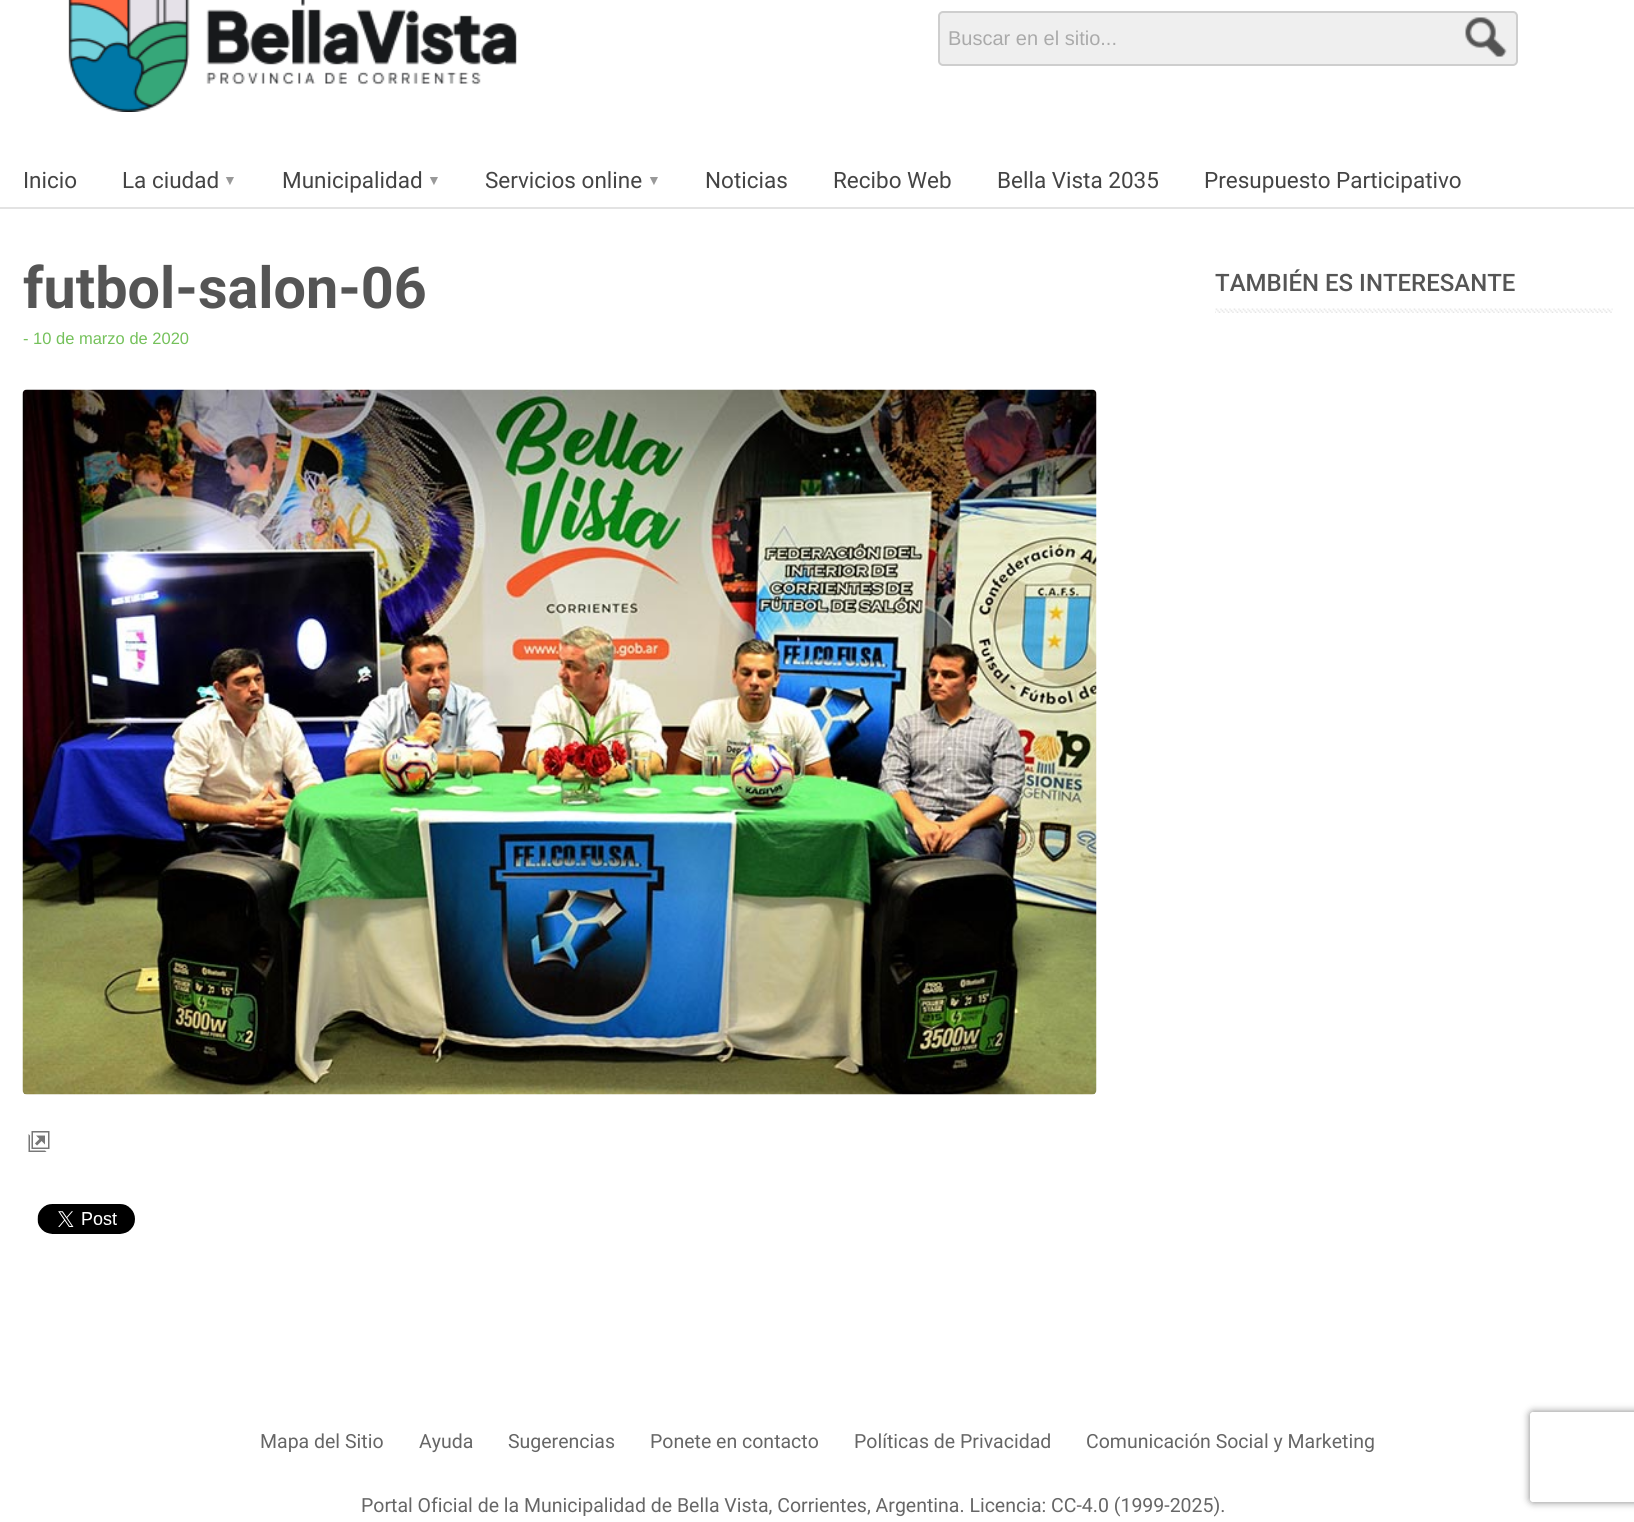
#include <cairo.h>
#include <math.h>
#include <stddef.h>

typedef struct { double x, y; const char *s; } line_t;

static void ink(cairo_t *ctx, unsigned color) {
    cairo_set_source_rgb(ctx, (color >> 16) / 255.0, (color >> 8 & 255) / 255.0, (color & 255) / 255.0);
}

static void round_path(cairo_t *ctx, double x, double y, double w, double h, double r) {
    cairo_new_sub_path(ctx);
    cairo_arc(ctx, x + w - r, y + h - r, r, 0, M_PI / 2);
    cairo_arc(ctx, x + r, y + h - r, r, M_PI / 2, M_PI);
    cairo_arc(ctx, x + r, y + r, r, M_PI, 1.5 * M_PI);
    cairo_arc(ctx, x + w - r, y + r, r, 1.5 * M_PI, 2 * M_PI);
    cairo_close_path(ctx);
}

static void blur_box(cairo_t *ctx, double x, double y, double w, double h, double r, double blur, double alpha) {
    cairo_push_group_with_content(ctx, CAIRO_CONTENT_ALPHA);
    cairo_set_operator(ctx, CAIRO_OPERATOR_SOURCE);
    for (int i = 15; i >= -15 && fmin(w, h) + blur * i / 3 > 0; i -= 2) {
        double e = blur * i / 6;
        cairo_set_source_rgba(ctx, 0, 0, 0, alpha * erfc((i - 1) / 8.5) / 2);
        round_path(ctx, x - e, y - e, w + 2 * e, h + 2 * e, fmax(0, fmin(r + e + blur * .6, fmin(w, h) / 2 + e)));
        cairo_fill(ctx);
    }
    cairo_pattern_t *soft = cairo_pop_group(ctx);
    cairo_mask(ctx, soft);
    cairo_pattern_destroy(soft);
}

static void paste(cairo_t *ctx, const char *path, double x, double y, double w, double h) {
    cairo_surface_t *image = cairo_image_surface_create_from_png(path);
    cairo_save(ctx);
    cairo_set_source_surface(ctx, image, x, y);
    cairo_rectangle(ctx, x, y, w, h);
    cairo_fill(ctx);
    cairo_restore(ctx);
    cairo_surface_destroy(image);
}

int main(void) {
    cairo_surface_t *surface = cairo_image_surface_create(CAIRO_FORMAT_RGB24, 1634, 1522);
    cairo_t *ctx = cairo_create(surface);
    cairo_font_options_t *options = cairo_font_options_create();
    cairo_font_options_set_hint_metrics(options, CAIRO_HINT_METRICS_OFF);
    cairo_font_options_set_hint_style(options, CAIRO_HINT_STYLE_NONE);
    cairo_set_font_options(ctx, options);
    cairo_set_miter_limit(ctx, 4);
    ink(ctx, 0xFFFFFF);
    cairo_paint(ctx);
    paste(ctx, "media/1.png", 68, 0, 449, 112);
    ink(ctx, 0xEFEFEF);
    round_path(ctx, 939, 12, 578, 53, 4);
    cairo_fill_preserve(ctx);
    ink(ctx, 0xCECECE);
    cairo_stroke(ctx);
    cairo_select_font_face(ctx, "Liberation Sans", CAIRO_FONT_SLANT_NORMAL, CAIRO_FONT_WEIGHT_NORMAL);
    cairo_set_font_size(ctx, 20);
    ink(ctx, 0xAAAAAA);
    cairo_move_to(ctx, 948, 45);
    cairo_show_text(ctx, "Buscar en el sitio...");
    paste(ctx, "media/2.png", 1465, 17, 42, 40);
    ink(ctx, 0xE3E3E3);
    cairo_rectangle(ctx, 0, 207, 1634, 2);
    cairo_fill(ctx);
    cairo_select_font_face(ctx, "Roboto", CAIRO_FONT_SLANT_NORMAL, CAIRO_FONT_WEIGHT_NORMAL);
    cairo_set_font_size(ctx, 22.5);
    ink(ctx, 0x444444);
    cairo_move_to(ctx, 23, 188);
    cairo_show_text(ctx, "Inicio");
    cairo_move_to(ctx, 122, 188);
    cairo_show_text(ctx, "La ciudad");
    cairo_select_font_face(ctx, "Liberation Sans", CAIRO_FONT_SLANT_NORMAL, CAIRO_FONT_WEIGHT_NORMAL);
    cairo_set_font_size(ctx, 14);
    ink(ctx, 0x999999);
    cairo_move_to(ctx, 223, 185);
    cairo_show_text(ctx, "▼");
    cairo_select_font_face(ctx, "Roboto", CAIRO_FONT_SLANT_NORMAL, CAIRO_FONT_WEIGHT_NORMAL);
    cairo_set_font_size(ctx, 22.5);
    ink(ctx, 0x444444);
    cairo_move_to(ctx, 282, 188);
    cairo_show_text(ctx, "Municipalidad");
    cairo_select_font_face(ctx, "Liberation Sans", CAIRO_FONT_SLANT_NORMAL, CAIRO_FONT_WEIGHT_NORMAL);
    cairo_set_font_size(ctx, 14);
    ink(ctx, 0x999999);
    cairo_move_to(ctx, 427, 185);
    cairo_show_text(ctx, "▼");
    cairo_select_font_face(ctx, "Roboto", CAIRO_FONT_SLANT_NORMAL, CAIRO_FONT_WEIGHT_NORMAL);
    cairo_set_font_size(ctx, 22.5);
    ink(ctx, 0x444444);
    cairo_move_to(ctx, 485, 188);
    cairo_show_text(ctx, "Servicios online");
    cairo_select_font_face(ctx, "Liberation Sans", CAIRO_FONT_SLANT_NORMAL, CAIRO_FONT_WEIGHT_NORMAL);
    cairo_set_font_size(ctx, 14);
    ink(ctx, 0x999999);
    cairo_move_to(ctx, 647, 185);
    cairo_show_text(ctx, "▼");
    cairo_select_font_face(ctx, "Roboto", CAIRO_FONT_SLANT_NORMAL, CAIRO_FONT_WEIGHT_NORMAL);
    cairo_set_font_size(ctx, 22.5);
    ink(ctx, 0x444444);
    {
        static const line_t items[] = {
            {705, 188, "Noticias"},
            {833, 188, "Recibo Web"},
            {997, 188, "Bella Vista 2035"},
            {1204, 188, "Presupuesto Participativo"},
        };
        for (size_t i = 0; i < sizeof items / sizeof *items; i++) {
            cairo_move_to(ctx, items[i].x, items[i].y);
            cairo_show_text(ctx, items[i].s);
        }
    }
    cairo_select_font_face(ctx, "Roboto", CAIRO_FONT_SLANT_NORMAL, CAIRO_FONT_WEIGHT_BOLD);
    cairo_set_font_size(ctx, 57.5);
    ink(ctx, 0x555555);
    cairo_move_to(ctx, 23, 308);
    cairo_show_text(ctx, "futbol-salon-06");
    cairo_select_font_face(ctx, "Liberation Sans", CAIRO_FONT_SLANT_NORMAL, CAIRO_FONT_WEIGHT_NORMAL);
    cairo_set_font_size(ctx, 16.5);
    ink(ctx, 0x74C15A);
    cairo_move_to(ctx, 23, 344);
    cairo_show_text(ctx, "- 10 de marzo de 2020");
    paste(ctx, "media/3.png", 22, 389, 1075, 706);
    paste(ctx, "media/4.png", 28, 1131, 22, 21);
    paste(ctx, "media/5.png", 37, 1204, 98, 30);
    paste(ctx, "media/6.png", 1215, 308, 398, 5);
    cairo_select_font_face(ctx, "Roboto Medium", CAIRO_FONT_SLANT_NORMAL, CAIRO_FONT_WEIGHT_NORMAL);
    cairo_set_font_size(ctx, 24);
    ink(ctx, 0x555555);
    cairo_move_to(ctx, 1215, 291);
    cairo_show_text(ctx, "TAMBIÉN ES INTERESANTE");
    cairo_select_font_face(ctx, "Roboto", CAIRO_FONT_SLANT_NORMAL, CAIRO_FONT_WEIGHT_NORMAL);
    cairo_set_font_size(ctx, 19.5);
    ink(ctx, 0x666666);
    {
        static const line_t items[] = {
            {260, 1448, "Mapa del Sitio"},
            {419, 1448, "Ayuda"},
            {508, 1448, "Sugerencias"},
            {650, 1448, "Ponete en contacto"},
            {854, 1448, "Políticas de Privacidad"},
            {1086, 1448, "Comunicación Social y Marketing"},
        };
        for (size_t i = 0; i < sizeof items / sizeof *items; i++) {
            cairo_move_to(ctx, items[i].x, items[i].y);
            cairo_show_text(ctx, items[i].s);
        }
    }
    cairo_save(ctx);
    cairo_set_fill_rule(ctx, CAIRO_FILL_RULE_EVEN_ODD);
    cairo_new_path(ctx);
    cairo_move_to(ctx, 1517, 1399);
    cairo_line_to(ctx, 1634, 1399);
    cairo_line_to(ctx, 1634, 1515);
    cairo_line_to(ctx, 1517, 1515);
    cairo_close_path(ctx);
    cairo_move_to(ctx, 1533, 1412);
    cairo_line_to(ctx, 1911, 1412);
    cairo_curve_to(ctx, 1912.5, 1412, 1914, 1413.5, 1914, 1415);
    cairo_line_to(ctx, 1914, 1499);
    cairo_curve_to(ctx, 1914, 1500.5, 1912.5, 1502, 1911, 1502);
    cairo_line_to(ctx, 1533, 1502);
    cairo_curve_to(ctx, 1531.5, 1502, 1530, 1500.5, 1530, 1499);
    cairo_line_to(ctx, 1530, 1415);
    cairo_curve_to(ctx, 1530, 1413.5, 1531.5, 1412, 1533, 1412);
    cairo_close_path(ctx);
    cairo_clip(ctx);
    ink(ctx, 0x808080);
    blur_box(ctx, 1530, 1412, 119, 90, 3, 4, 1);
    cairo_restore(ctx);
    cairo_move_to(ctx, 361, 1512);
    cairo_show_text(ctx, "Portal Oficial de la Municipalidad de Bella Vista, Corrientes, Argentina. Licencia: CC-4.0 (1999-2025).");
    cairo_surface_write_to_png(surface, "image.png");
    cairo_font_options_destroy(options);
    cairo_destroy(ctx);
    cairo_surface_destroy(surface);
    return 0;
}
